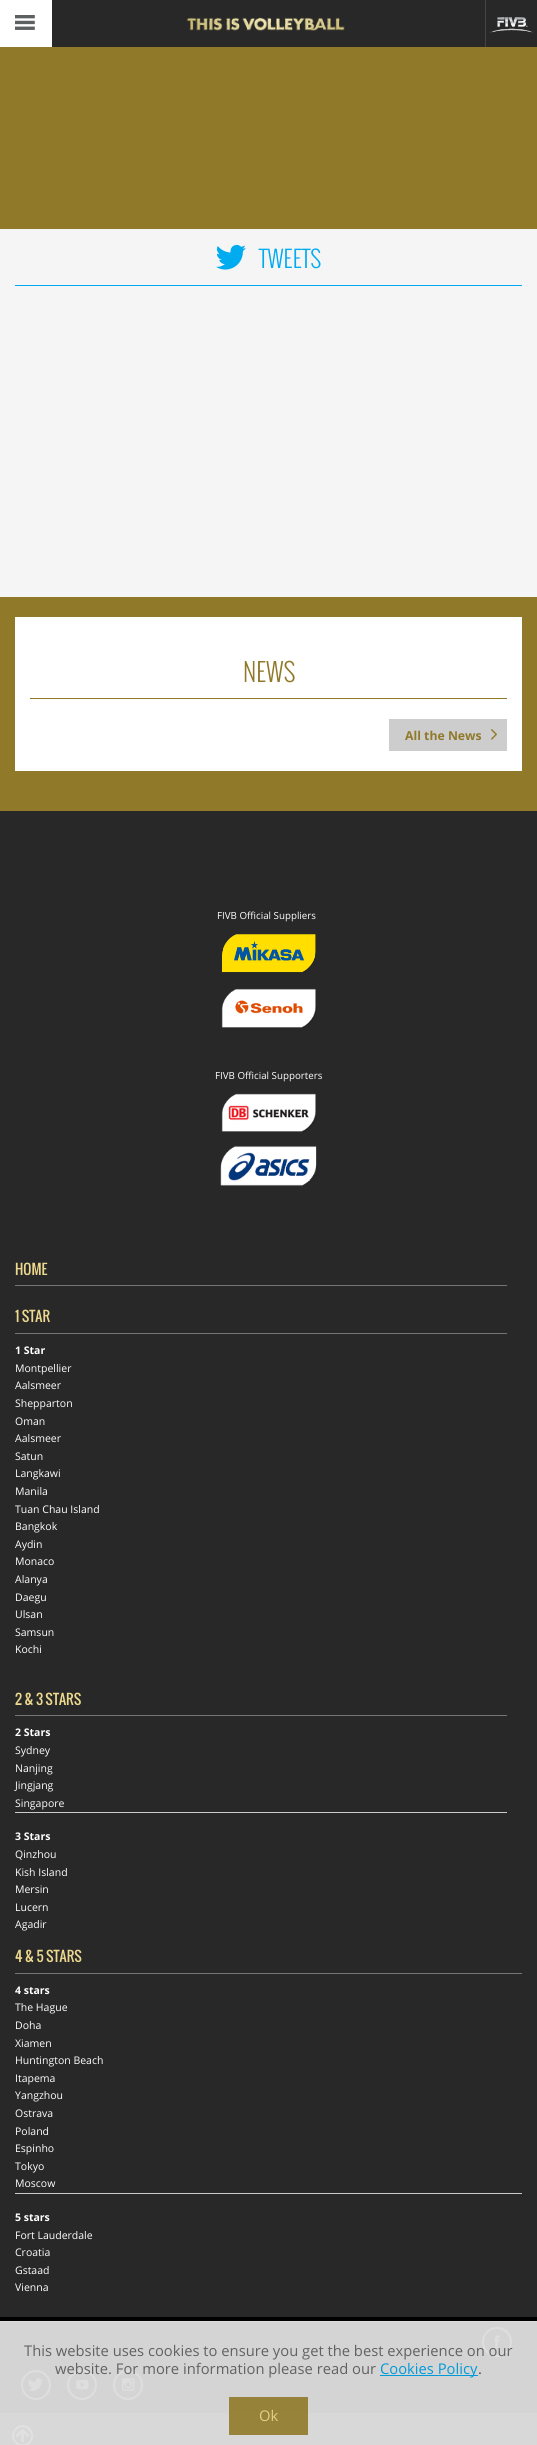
#include <cairo.h>
#include <math.h>
#include <stddef.h>

typedef struct { double x, y; const char *s; } line_t;
typedef struct { double x, y, w, h; unsigned color; } box_t;

static void ink(cairo_t *ctx, unsigned color) {
    cairo_set_source_rgb(ctx, (color >> 16) / 255.0, (color >> 8 & 255) / 255.0, (color & 255) / 255.0);
}

static void paste(cairo_t *ctx, const char *path, double x, double y, double w, double h) {
    cairo_surface_t *image = cairo_image_surface_create_from_png(path);
    cairo_save(ctx);
    cairo_set_source_surface(ctx, image, x, y);
    cairo_rectangle(ctx, x, y, w, h);
    cairo_fill(ctx);
    cairo_restore(ctx);
    cairo_surface_destroy(image);
}

int main(void) {
    cairo_surface_t *surface = cairo_image_surface_create(CAIRO_FORMAT_RGB24, 537, 2445);
    cairo_t *ctx = cairo_create(surface);
    cairo_font_options_t *options = cairo_font_options_create();
    cairo_font_options_set_hint_metrics(options, CAIRO_HINT_METRICS_OFF);
    cairo_font_options_set_hint_style(options, CAIRO_HINT_STYLE_NONE);
    cairo_set_font_options(ctx, options);
    cairo_set_miter_limit(ctx, 4);
    ink(ctx, 0x907929);
    cairo_paint(ctx);
    ink(ctx, 0x282828);
    cairo_rectangle(ctx, 52, 0, 485, 47);
    cairo_fill(ctx);
    ink(ctx, 0xFFFFFF);
    cairo_rectangle(ctx, 0, 0, 52, 47);
    cairo_fill(ctx);
    paste(ctx, "media/1.png", 15, 15, 20, 15);
    paste(ctx, "media/2.png", 187, 17, 158, 14);
    ink(ctx, 0x444444);
    cairo_rectangle(ctx, 485, 0, 1, 47);
    cairo_fill(ctx);
    paste(ctx, "media/3.png", 490, 17, 43, 16);
    ink(ctx, 0xF6F5F5);
    cairo_rectangle(ctx, 0, 229, 537, 368);
    cairo_fill(ctx);
    ink(ctx, 0x00ABF0);
    cairo_rectangle(ctx, 15, 285, 507, 1);
    cairo_fill(ctx);
    paste(ctx, "media/4.png", 216, 244, 30, 26);
    cairo_select_font_face(ctx, "Oswald Light", CAIRO_FONT_SLANT_NORMAL, CAIRO_FONT_WEIGHT_NORMAL);
    cairo_set_font_size(ctx, 23);
    cairo_move_to(ctx, 259, 268);
    cairo_show_text(ctx, "TWEETS");
    ink(ctx, 0xFFFFFF);
    cairo_rectangle(ctx, 15, 617, 507, 154);
    cairo_fill(ctx);
    ink(ctx, 0x907929);
    cairo_rectangle(ctx, 30, 698, 477, 1);
    cairo_fill(ctx);
    cairo_set_font_size(ctx, 25);
    cairo_move_to(ctx, 243, 682);
    cairo_show_text(ctx, "NEWS");
    ink(ctx, 0xCDCDCD);
    cairo_rectangle(ctx, 389, 719, 118, 32);
    cairo_fill(ctx);
    cairo_select_font_face(ctx, "Open Sans", CAIRO_FONT_SLANT_NORMAL, CAIRO_FONT_WEIGHT_BOLD);
    cairo_set_font_size(ctx, 12.25);
    ink(ctx, 0x907929);
    cairo_move_to(ctx, 405, 740);
    cairo_show_text(ctx, "All the News");
    paste(ctx, "media/5.png", 491, 729, 6, 11);
    ink(ctx, 0x282828);
    cairo_rectangle(ctx, 0, 811, 537, 1506);
    cairo_fill(ctx);
    cairo_select_font_face(ctx, "Open Sans", CAIRO_FONT_SLANT_NORMAL, CAIRO_FONT_WEIGHT_NORMAL);
    cairo_set_font_size(ctx, 9.75);
    ink(ctx, 0xFFFFFF);
    cairo_move_to(ctx, 217, 919);
    cairo_show_text(ctx, "FIVB Official Suppliers");
    paste(ctx, "media/6.png", 222, 934, 94, 39);
    paste(ctx, "media/7.png", 221, 988, 96, 40);
    cairo_move_to(ctx, 215, 1079);
    cairo_show_text(ctx, "FIVB Official Supporters");
    paste(ctx, "media/8.png", 221, 1093, 96, 39);
    paste(ctx, "media/9.png", 220, 1146, 97, 40);
    ink(ctx, 0x757575);
    cairo_rectangle(ctx, 15, 1285, 492, 1);
    cairo_fill(ctx);
    cairo_select_font_face(ctx, "Oswald", CAIRO_FONT_SLANT_NORMAL, CAIRO_FONT_WEIGHT_NORMAL);
    cairo_set_font_size(ctx, 14);
    ink(ctx, 0xECD88E);
    cairo_move_to(ctx, 15, 1275);
    cairo_show_text(ctx, "HOME");
    ink(ctx, 0x757575);
    cairo_rectangle(ctx, 15, 1333, 492, 1);
    cairo_fill(ctx);
    ink(ctx, 0xECD88E);
    cairo_move_to(ctx, 15, 1322);
    cairo_show_text(ctx, "1 STAR");
    cairo_select_font_face(ctx, "Open Sans", CAIRO_FONT_SLANT_NORMAL, CAIRO_FONT_WEIGHT_BOLD);
    cairo_set_font_size(ctx, 10.5);
    ink(ctx, 0xFFFFFF);
    cairo_move_to(ctx, 15, 1354);
    cairo_show_text(ctx, "1 Star");
    cairo_select_font_face(ctx, "Open Sans", CAIRO_FONT_SLANT_NORMAL, CAIRO_FONT_WEIGHT_NORMAL);
    {
        static const line_t items[] = {
            {15, 1372, "Montpellier"},
            {15, 1389, "Aalsmeer"},
            {15, 1407, "Shepparton"},
            {15, 1425, "Oman"},
            {15, 1442, "Aalsmeer"},
            {15, 1460, "Satun"},
            {15, 1477, "Langkawi"},
            {15, 1495, "Manila"},
            {15, 1513, "Tuan Chau Island"},
            {15, 1530, "Bangkok"},
            {15, 1548, "Aydin"},
            {15, 1565, "Monaco"},
            {15, 1583, "Alanya"},
            {15, 1601, "Daegu"},
            {15, 1618, "Ulsan"},
            {15, 1636, "Samsun"},
            {15, 1653, "Kochi"},
        };
        for (size_t i = 0; i < sizeof items / sizeof *items; i++) {
            cairo_move_to(ctx, items[i].x, items[i].y);
            cairo_show_text(ctx, items[i].s);
        }
    }
    ink(ctx, 0x757575);
    cairo_rectangle(ctx, 15, 1715, 492, 1);
    cairo_fill(ctx);
    cairo_select_font_face(ctx, "Oswald", CAIRO_FONT_SLANT_NORMAL, CAIRO_FONT_WEIGHT_NORMAL);
    cairo_set_font_size(ctx, 14);
    ink(ctx, 0xECD88E);
    cairo_move_to(ctx, 15, 1705);
    cairo_show_text(ctx, "2 & 3 STARS");
    cairo_select_font_face(ctx, "Open Sans", CAIRO_FONT_SLANT_NORMAL, CAIRO_FONT_WEIGHT_BOLD);
    cairo_set_font_size(ctx, 10.5);
    ink(ctx, 0xFFFFFF);
    cairo_move_to(ctx, 15, 1736);
    cairo_show_text(ctx, "2 Stars");
    cairo_select_font_face(ctx, "Open Sans", CAIRO_FONT_SLANT_NORMAL, CAIRO_FONT_WEIGHT_NORMAL);
    {
        static const line_t items[] = {
            {15, 1754, "Sydney"},
            {15, 1772, "Nanjing"},
            {15, 1789, "Jingjang"},
            {15, 1807, "Singapore"},
        };
        for (size_t i = 0; i < sizeof items / sizeof *items; i++) {
            cairo_move_to(ctx, items[i].x, items[i].y);
            cairo_show_text(ctx, items[i].s);
        }
    }
    ink(ctx, 0xCCCCCC);
    cairo_rectangle(ctx, 15, 1812, 492, 1);
    cairo_fill(ctx);
    cairo_select_font_face(ctx, "Open Sans", CAIRO_FONT_SLANT_NORMAL, CAIRO_FONT_WEIGHT_BOLD);
    ink(ctx, 0xFFFFFF);
    cairo_move_to(ctx, 15, 1840);
    cairo_show_text(ctx, "3 Stars");
    cairo_select_font_face(ctx, "Open Sans", CAIRO_FONT_SLANT_NORMAL, CAIRO_FONT_WEIGHT_NORMAL);
    {
        static const line_t items[] = {
            {15, 1858, "Qinzhou"},
            {15, 1876, "Kish Island"},
            {15, 1893, "Mersin"},
            {15, 1911, "Lucern"},
            {15, 1928, "Agadir"},
        };
        for (size_t i = 0; i < sizeof items / sizeof *items; i++) {
            cairo_move_to(ctx, items[i].x, items[i].y);
            cairo_show_text(ctx, items[i].s);
        }
    }
    ink(ctx, 0x757575);
    cairo_rectangle(ctx, 15, 1973, 507, 1);
    cairo_fill(ctx);
    cairo_select_font_face(ctx, "Oswald", CAIRO_FONT_SLANT_NORMAL, CAIRO_FONT_WEIGHT_NORMAL);
    cairo_set_font_size(ctx, 14);
    ink(ctx, 0xECD88E);
    cairo_move_to(ctx, 15, 1962);
    cairo_show_text(ctx, "4 & 5 STARS");
    cairo_select_font_face(ctx, "Open Sans", CAIRO_FONT_SLANT_NORMAL, CAIRO_FONT_WEIGHT_BOLD);
    cairo_set_font_size(ctx, 10.5);
    ink(ctx, 0xFFFFFF);
    cairo_move_to(ctx, 15, 1994);
    cairo_show_text(ctx, "4 stars");
    cairo_select_font_face(ctx, "Open Sans", CAIRO_FONT_SLANT_NORMAL, CAIRO_FONT_WEIGHT_NORMAL);
    {
        static const line_t items[] = {
            {15, 2011, "The Hague"},
            {15, 2029, "Doha"},
            {15, 2047, "Xiamen"},
            {15, 2064, "Huntington Beach"},
            {15, 2082, "Itapema"},
            {15, 2099, "Yangzhou"},
            {15, 2117, "Ostrava"},
            {15, 2135, "Poland"},
            {15, 2152, "Espinho"},
            {15, 2170, "Tokyo"},
            {15, 2187, "Moscow"},
        };
        for (size_t i = 0; i < sizeof items / sizeof *items; i++) {
            cairo_move_to(ctx, items[i].x, items[i].y);
            cairo_show_text(ctx, items[i].s);
        }
    }
    ink(ctx, 0xCCCCCC);
    cairo_rectangle(ctx, 15, 2193, 507, 1);
    cairo_fill(ctx);
    cairo_select_font_face(ctx, "Open Sans", CAIRO_FONT_SLANT_NORMAL, CAIRO_FONT_WEIGHT_BOLD);
    ink(ctx, 0xFFFFFF);
    cairo_move_to(ctx, 15, 2221);
    cairo_show_text(ctx, "5 stars");
    cairo_select_font_face(ctx, "Open Sans", CAIRO_FONT_SLANT_NORMAL, CAIRO_FONT_WEIGHT_NORMAL);
    {
        static const line_t items[] = {
            {15, 2239, "Fort Lauderdale"},
            {15, 2256, "Croatia"},
            {15, 2274, "Gstaad"},
            {15, 2291, "Vienna"},
        };
        for (size_t i = 0; i < sizeof items / sizeof *items; i++) {
            cairo_move_to(ctx, items[i].x, items[i].y);
            cairo_show_text(ctx, items[i].s);
        }
    }
    {
        static const box_t items[] = {
            {0, 2317, 537, 4, 0x000000},
            {0, 2322, 537, 91, 0xD5D4D4},
            {229, 2397, 79, 16, 0x97823A},
        };
        for (size_t i = 0; i < sizeof items / sizeof *items; i++) {
            ink(ctx, items[i].color);
            cairo_rectangle(ctx, items[i].x, items[i].y, items[i].w, items[i].h);
            cairo_fill(ctx);
        }
    }
    cairo_new_path(ctx);
    cairo_arc(ctx, 497, 2342, 14, 0, 2 * M_PI);
    ink(ctx, 0xDFDEDE);
    cairo_stroke(ctx);
    paste(ctx, "media/10.png", 494, 2335, 6, 13);
    cairo_arc(ctx, 36, 2385, 14, 0, 2 * M_PI);
    cairo_stroke(ctx);
    paste(ctx, "media/11.png", 28, 2378, 15, 13);
    cairo_arc(ctx, 82, 2385, 14, 0, 2 * M_PI);
    cairo_stroke(ctx);
    paste(ctx, "media/12.png", 76, 2380, 13, 10);
    cairo_arc(ctx, 128, 2385, 14, 0, 2 * M_PI);
    cairo_stroke(ctx);
    paste(ctx, "media/13.png", 122, 2378, 13, 13);
    ink(ctx, 0xDDDDDD);
    cairo_rectangle(ctx, 0, 2321, 537, 1);
    cairo_fill(ctx);
    cairo_set_font_size(ctx, 14.75);
    ink(ctx, 0x626262);
    cairo_move_to(ctx, 24, 2356);
    cairo_show_text(ctx, "This website uses cookies to ensure you get the best experience on our");
    cairo_move_to(ctx, 55, 2374);
    cairo_show_text(ctx, "website. For more information please read our");
    ink(ctx, 0x009AD8);
    cairo_rectangle(ctx, 380, 2375, 98, 1);
    cairo_fill(ctx);
    cairo_move_to(ctx, 380, 2374);
    cairo_show_text(ctx, "Cookies Policy");
    ink(ctx, 0x4D4D4D);
    cairo_move_to(ctx, 478, 2374);
    cairo_show_text(ctx, ".");
    ink(ctx, 0xD9D8D8);
    cairo_rectangle(ctx, 0, 2413, 537, 32);
    cairo_fill(ctx);
    ink(ctx, 0x97833A);
    cairo_rectangle(ctx, 229, 2413, 79, 22);
    cairo_fill(ctx);
    ink(ctx, 0xE4CF86);
    cairo_move_to(ctx, 259, 2421);
    cairo_show_text(ctx, "Ok");
    paste(ctx, "media/14.png", 12, 2425, 22, 20);
    cairo_surface_write_to_png(surface, "image.png");
    cairo_font_options_destroy(options);
    cairo_destroy(ctx);
    cairo_surface_destroy(surface);
    return 0;
}
